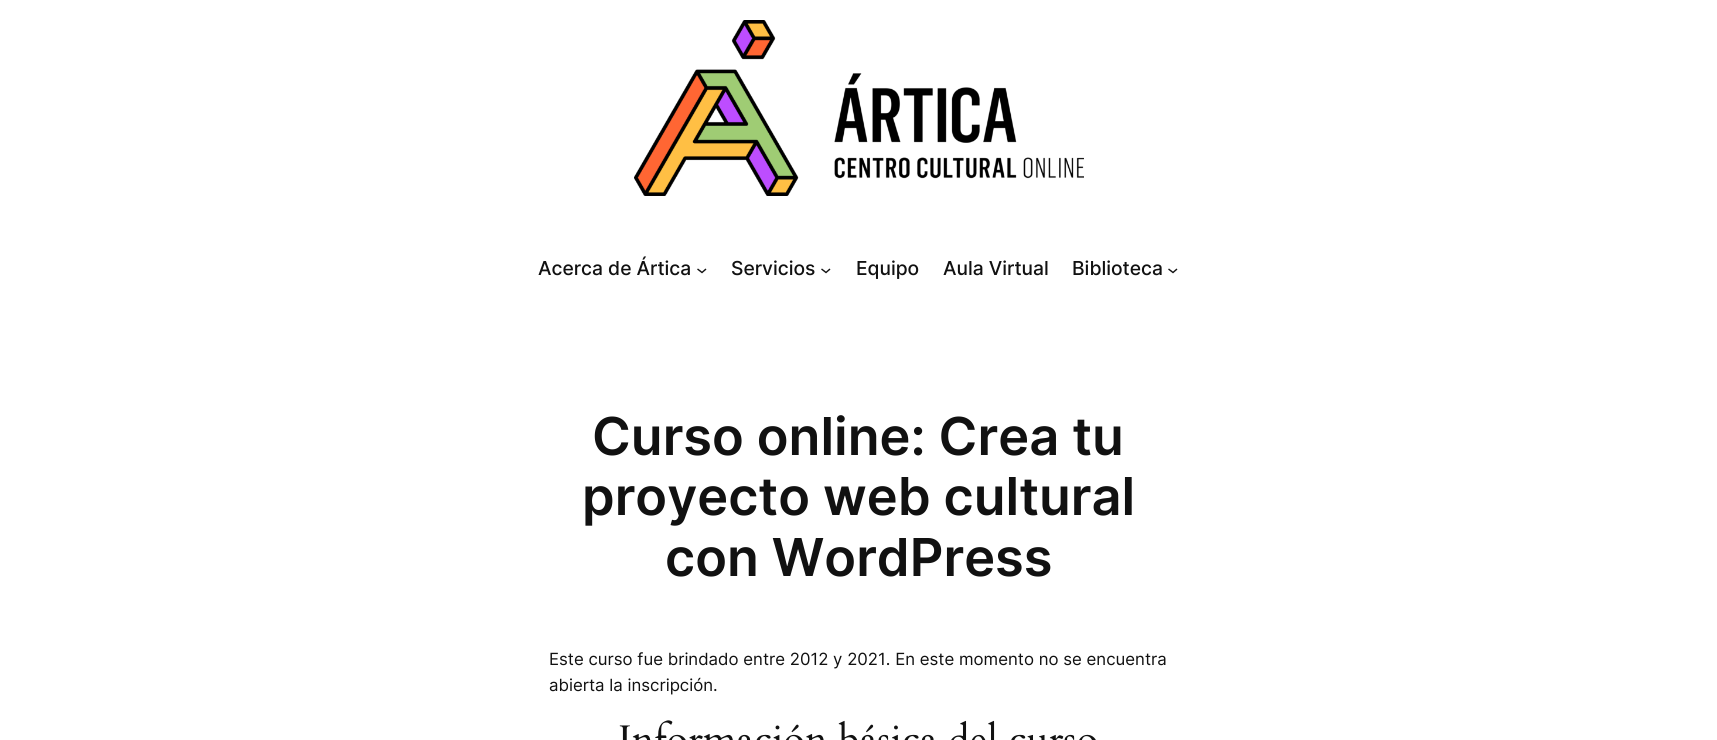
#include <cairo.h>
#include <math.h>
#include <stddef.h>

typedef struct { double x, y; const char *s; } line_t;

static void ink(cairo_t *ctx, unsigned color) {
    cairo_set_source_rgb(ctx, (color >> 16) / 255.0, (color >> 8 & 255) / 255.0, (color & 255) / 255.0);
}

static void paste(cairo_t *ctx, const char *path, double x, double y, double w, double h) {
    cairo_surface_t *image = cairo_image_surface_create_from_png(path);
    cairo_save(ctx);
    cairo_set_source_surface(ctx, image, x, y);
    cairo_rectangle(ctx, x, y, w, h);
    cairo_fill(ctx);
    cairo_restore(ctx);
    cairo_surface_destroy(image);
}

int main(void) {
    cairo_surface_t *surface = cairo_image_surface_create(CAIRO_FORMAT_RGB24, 1717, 740);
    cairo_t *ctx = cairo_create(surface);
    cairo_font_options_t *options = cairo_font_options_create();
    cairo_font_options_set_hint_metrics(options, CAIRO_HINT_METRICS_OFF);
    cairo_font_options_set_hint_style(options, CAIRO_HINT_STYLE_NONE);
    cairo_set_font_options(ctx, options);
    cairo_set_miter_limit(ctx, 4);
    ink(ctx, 0xFFFFFF);
    cairo_paint(ctx);
    paste(ctx, "media/1.png", 634, 20, 450, 176);
    cairo_select_font_face(ctx, "Inter Medium", CAIRO_FONT_SLANT_NORMAL, CAIRO_FONT_WEIGHT_NORMAL);
    cairo_set_font_size(ctx, 19.25);
    ink(ctx, 0x111111);
    cairo_move_to(ctx, 538, 275);
    cairo_show_text(ctx, "Acerca de Ártica");
    cairo_new_path(ctx);
    cairo_move_to(ctx, 697.5, 269);
    cairo_line_to(ctx, 702, 272.5);
    cairo_line_to(ctx, 706, 269);
    cairo_set_line_width(ctx, 1.4);
    cairo_stroke(ctx);
    cairo_move_to(ctx, 731, 275);
    cairo_show_text(ctx, "Servicios");
    cairo_new_path(ctx);
    cairo_move_to(ctx, 821.5, 269);
    cairo_line_to(ctx, 826, 272.5);
    cairo_line_to(ctx, 830, 269);
    cairo_stroke(ctx);
    {
        static const line_t items[] = {
            {856, 275, "Equipo"},
            {943, 275, "Aula Virtual"},
            {1072, 275, "Biblioteca"},
        };
        for (size_t i = 0; i < sizeof items / sizeof *items; i++) {
            cairo_move_to(ctx, items[i].x, items[i].y);
            cairo_show_text(ctx, items[i].s);
        }
    }
    cairo_new_path(ctx);
    cairo_move_to(ctx, 1168.5, 269);
    cairo_line_to(ctx, 1173, 272.5);
    cairo_line_to(ctx, 1177, 269);
    cairo_stroke(ctx);
    cairo_select_font_face(ctx, "Inter SemiBold", CAIRO_FONT_SLANT_NORMAL, CAIRO_FONT_WEIGHT_NORMAL);
    cairo_set_font_size(ctx, 52.25);
    {
        static const line_t items[] = {
            {592, 455, "Curso online: Crea tu"},
            {582, 515, "proyecto web cultural"},
            {665, 576, "con WordPress"},
        };
        for (size_t i = 0; i < sizeof items / sizeof *items; i++) {
            cairo_move_to(ctx, items[i].x, items[i].y);
            cairo_show_text(ctx, items[i].s);
        }
    }
    cairo_select_font_face(ctx, "Inter", CAIRO_FONT_SLANT_NORMAL, CAIRO_FONT_WEIGHT_NORMAL);
    cairo_set_font_size(ctx, 16.8);
    cairo_move_to(ctx, 549, 665);
    cairo_show_text(ctx, "Este curso fue brindado entre 2012 y 2021. En este momento no se encuentra");
    cairo_move_to(ctx, 549, 691);
    cairo_show_text(ctx, "abierta la inscripción.");
    paste(ctx, "media/2.png", 619, 720, 477, 20);
    cairo_surface_write_to_png(surface, "image.png");
    cairo_font_options_destroy(options);
    cairo_destroy(ctx);
    cairo_surface_destroy(surface);
    return 0;
}
